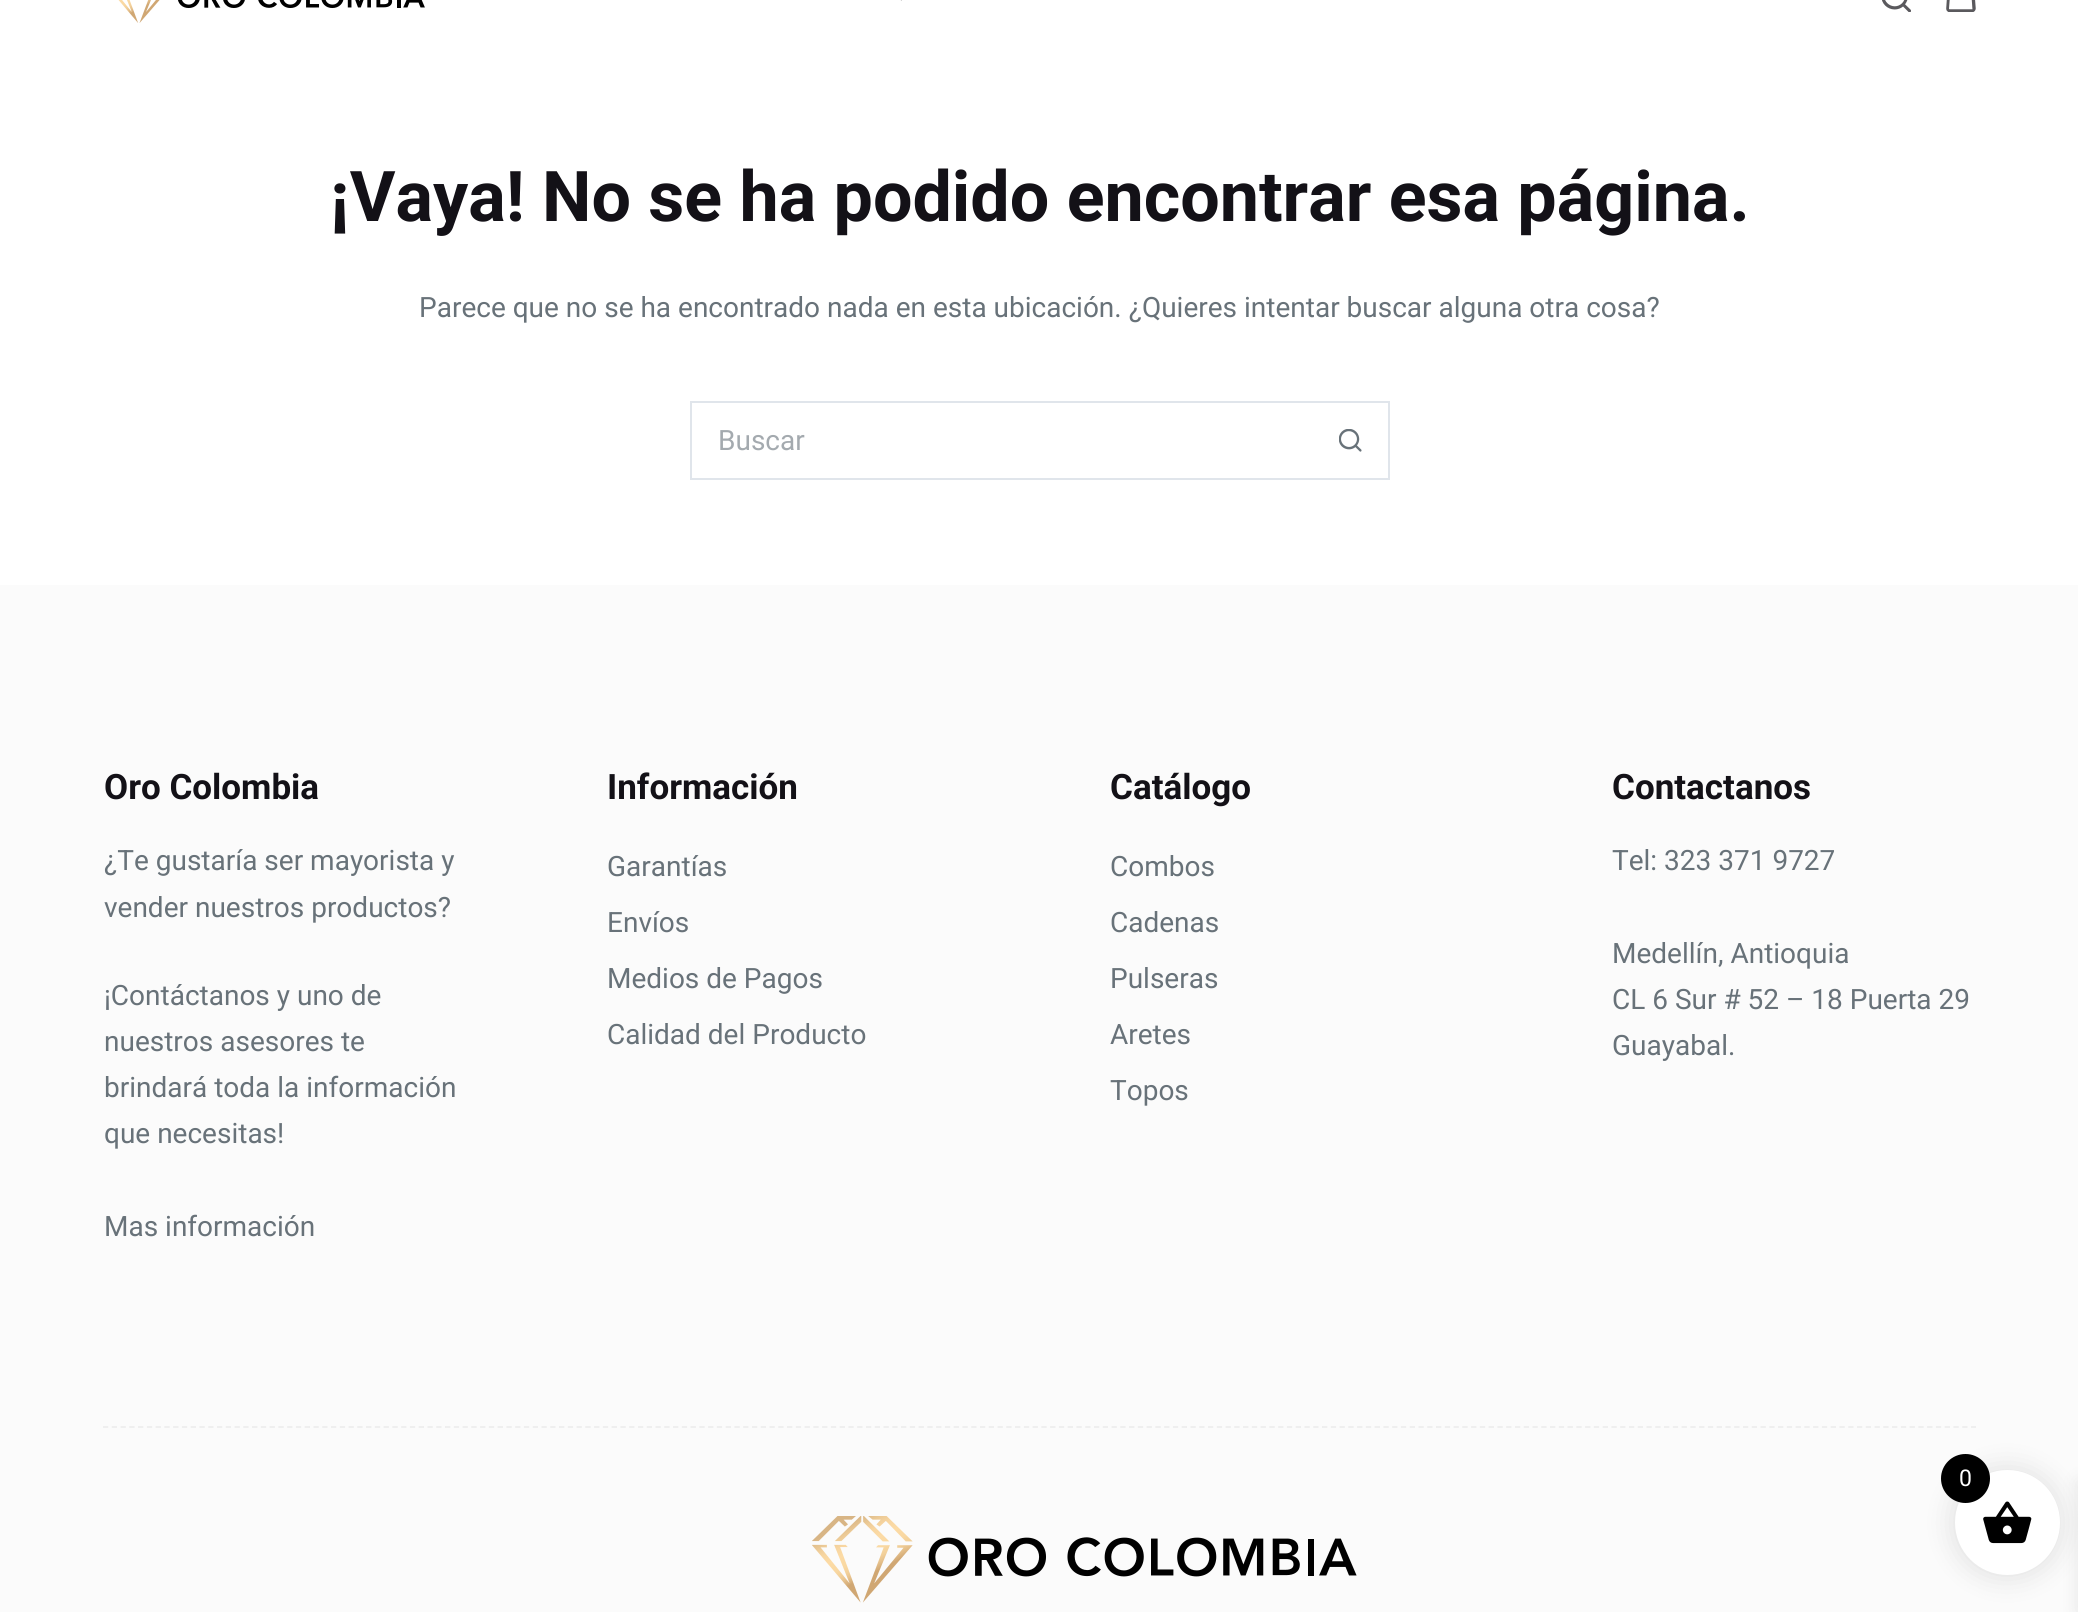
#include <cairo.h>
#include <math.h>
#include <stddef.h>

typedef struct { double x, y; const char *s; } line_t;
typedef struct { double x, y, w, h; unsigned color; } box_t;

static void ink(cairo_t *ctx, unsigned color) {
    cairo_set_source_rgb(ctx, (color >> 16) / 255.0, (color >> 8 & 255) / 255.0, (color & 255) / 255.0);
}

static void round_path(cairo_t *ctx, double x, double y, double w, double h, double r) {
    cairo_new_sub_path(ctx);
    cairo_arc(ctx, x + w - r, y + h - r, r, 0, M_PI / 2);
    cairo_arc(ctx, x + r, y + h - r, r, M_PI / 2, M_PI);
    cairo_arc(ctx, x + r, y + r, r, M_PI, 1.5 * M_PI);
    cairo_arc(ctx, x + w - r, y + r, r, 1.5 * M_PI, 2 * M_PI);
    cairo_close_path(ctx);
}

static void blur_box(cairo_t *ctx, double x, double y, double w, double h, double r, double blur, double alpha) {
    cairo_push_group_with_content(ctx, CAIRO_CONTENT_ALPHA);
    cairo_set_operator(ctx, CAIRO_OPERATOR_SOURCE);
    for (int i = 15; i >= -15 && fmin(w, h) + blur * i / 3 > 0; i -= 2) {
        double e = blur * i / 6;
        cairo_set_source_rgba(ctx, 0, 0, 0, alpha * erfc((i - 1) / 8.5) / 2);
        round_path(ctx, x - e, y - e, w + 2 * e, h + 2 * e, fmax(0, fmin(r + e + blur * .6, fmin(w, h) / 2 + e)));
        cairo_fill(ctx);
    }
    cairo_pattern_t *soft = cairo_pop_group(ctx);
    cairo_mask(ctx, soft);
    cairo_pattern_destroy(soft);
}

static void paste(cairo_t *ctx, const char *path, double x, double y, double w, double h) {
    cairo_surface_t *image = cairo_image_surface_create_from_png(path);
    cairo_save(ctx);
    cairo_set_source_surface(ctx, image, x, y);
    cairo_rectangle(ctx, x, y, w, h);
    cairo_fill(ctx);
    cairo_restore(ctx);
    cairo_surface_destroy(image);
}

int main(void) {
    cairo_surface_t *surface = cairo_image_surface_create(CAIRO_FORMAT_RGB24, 2078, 1612);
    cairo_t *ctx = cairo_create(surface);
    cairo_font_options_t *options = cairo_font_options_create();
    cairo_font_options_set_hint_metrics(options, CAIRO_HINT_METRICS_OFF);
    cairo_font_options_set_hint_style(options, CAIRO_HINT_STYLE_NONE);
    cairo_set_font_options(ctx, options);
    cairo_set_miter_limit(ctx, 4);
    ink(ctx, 0xFFFFFF);
    cairo_paint(ctx);
    paste(ctx, "media/1.png", 118, 0, 307, 23);
    paste(ctx, "media/2.png", 900, 0, 2, 1);
    paste(ctx, "media/3.png", 1882, 0, 29, 12);
    paste(ctx, "media/4.png", 1946, 0, 30, 12);
    cairo_select_font_face(ctx, "Roboto", CAIRO_FONT_SLANT_NORMAL, CAIRO_FONT_WEIGHT_BOLD);
    cairo_set_font_size(ctx, 70);
    ink(ctx, 0x131117);
    cairo_move_to(ctx, 330, 221);
    cairo_show_text(ctx, "¡Vaya! No se ha podido encontrar esa página.");
    cairo_select_font_face(ctx, "Roboto", CAIRO_FONT_SLANT_NORMAL, CAIRO_FONT_WEIGHT_NORMAL);
    cairo_set_font_size(ctx, 28);
    ink(ctx, 0x687279);
    cairo_move_to(ctx, 419, 317);
    cairo_show_text(ctx, "Parece que no se ha encontrado nada en esta ubicación. ¿Quieres intentar buscar alguna otra cosa?");
    {
        static const box_t items[] = {
            {690, 401, 700, 2, 0xE0E5EB},
            {690, 478, 621, 2, 0xE0E5EB},
            {690, 401, 2, 79, 0xE0E5EB},
        };
        for (size_t i = 0; i < sizeof items / sizeof *items; i++) {
            ink(ctx, items[i].color);
            cairo_rectangle(ctx, items[i].x, items[i].y, items[i].w, items[i].h);
            cairo_fill(ctx);
        }
    }
    ink(ctx, 0xA4AAAF);
    cairo_move_to(ctx, 718, 450);
    cairo_show_text(ctx, "Buscar");
    ink(ctx, 0xE0E5EB);
    cairo_rectangle(ctx, 1388, 401, 2, 79);
    cairo_fill(ctx);
    cairo_rectangle(ctx, 1311, 478, 79, 2);
    cairo_fill(ctx);
    paste(ctx, "media/5.png", 1339, 429, 23, 23);
    ink(ctx, 0xFBFBFB);
    cairo_rectangle(ctx, 0, 585, 2078, 1027);
    cairo_fill(ctx);
    cairo_select_font_face(ctx, "Roboto", CAIRO_FONT_SLANT_NORMAL, CAIRO_FONT_WEIGHT_BOLD);
    cairo_set_font_size(ctx, 35);
    ink(ctx, 0x131117);
    cairo_move_to(ctx, 104, 799);
    cairo_show_text(ctx, "Oro Colombia");
    cairo_select_font_face(ctx, "Roboto", CAIRO_FONT_SLANT_NORMAL, CAIRO_FONT_WEIGHT_NORMAL);
    cairo_set_font_size(ctx, 28);
    ink(ctx, 0x687279);
    {
        static const line_t items[] = {
            {104, 870, "¿Te gustaría ser mayorista y"},
            {104, 917, "vender nuestros productos?"},
            {104, 1005, "¡Contáctanos y uno de"},
            {104, 1051, "nuestros asesores te"},
            {104, 1097, "brindará toda la información"},
            {104, 1143, "que necesitas!"},
            {104, 1236, "Mas información"},
        };
        for (size_t i = 0; i < sizeof items / sizeof *items; i++) {
            cairo_move_to(ctx, items[i].x, items[i].y);
            cairo_show_text(ctx, items[i].s);
        }
    }
    cairo_select_font_face(ctx, "Roboto", CAIRO_FONT_SLANT_NORMAL, CAIRO_FONT_WEIGHT_BOLD);
    cairo_set_font_size(ctx, 35);
    ink(ctx, 0x131117);
    cairo_move_to(ctx, 607, 799);
    cairo_show_text(ctx, "Información");
    cairo_select_font_face(ctx, "Roboto", CAIRO_FONT_SLANT_NORMAL, CAIRO_FONT_WEIGHT_NORMAL);
    cairo_set_font_size(ctx, 28);
    ink(ctx, 0x687279);
    {
        static const line_t items[] = {
            {607, 876, "Garantías"},
            {607, 932, "Envíos"},
            {607, 988, "Medios de Pagos"},
            {607, 1044, "Calidad del Producto"},
        };
        for (size_t i = 0; i < sizeof items / sizeof *items; i++) {
            cairo_move_to(ctx, items[i].x, items[i].y);
            cairo_show_text(ctx, items[i].s);
        }
    }
    cairo_select_font_face(ctx, "Roboto", CAIRO_FONT_SLANT_NORMAL, CAIRO_FONT_WEIGHT_BOLD);
    cairo_set_font_size(ctx, 35);
    ink(ctx, 0x131117);
    cairo_move_to(ctx, 1110, 799);
    cairo_show_text(ctx, "Catálogo");
    cairo_select_font_face(ctx, "Roboto", CAIRO_FONT_SLANT_NORMAL, CAIRO_FONT_WEIGHT_NORMAL);
    cairo_set_font_size(ctx, 28);
    ink(ctx, 0x687279);
    {
        static const line_t items[] = {
            {1110, 876, "Combos"},
            {1110, 932, "Cadenas"},
            {1110, 988, "Pulseras"},
            {1110, 1044, "Aretes"},
            {1110, 1100, "Topos"},
        };
        for (size_t i = 0; i < sizeof items / sizeof *items; i++) {
            cairo_move_to(ctx, items[i].x, items[i].y);
            cairo_show_text(ctx, items[i].s);
        }
    }
    cairo_select_font_face(ctx, "Roboto", CAIRO_FONT_SLANT_NORMAL, CAIRO_FONT_WEIGHT_BOLD);
    cairo_set_font_size(ctx, 35);
    ink(ctx, 0x131117);
    cairo_move_to(ctx, 1612, 799);
    cairo_show_text(ctx, "Contactanos");
    cairo_select_font_face(ctx, "Roboto", CAIRO_FONT_SLANT_NORMAL, CAIRO_FONT_WEIGHT_NORMAL);
    cairo_set_font_size(ctx, 28);
    ink(ctx, 0x687279);
    {
        static const line_t items[] = {
            {1612, 870, "Tel: 323 371 9727"},
            {1612, 963, "Medellín, Antioquia"},
            {1612, 1009, "CL 6 Sur # 52 – 18 Puerta 29"},
            {1612, 1055, "Guayabal."},
        };
        for (size_t i = 0; i < sizeof items / sizeof *items; i++) {
            cairo_move_to(ctx, items[i].x, items[i].y);
            cairo_show_text(ctx, items[i].s);
        }
    }
    cairo_new_path(ctx);
    cairo_move_to(ctx, 103, 1427);
    cairo_line_to(ctx, 1976, 1427);
    ink(ctx, 0xEDEDED);
    cairo_set_line_width(ctx, 1.8);
    cairo_set_dash(ctx, (double[]){5.25, 3.52}, 2, 0);
    cairo_stroke(ctx);
    paste(ctx, "media/6.png", 812, 1516, 545, 87);
    ink(ctx, 0x000000);
    blur_box(ctx, 1951, 1467, 112, 112, 56, 13, 0.1);
    blur_box(ctx, 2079, 1482, 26, 130, 0, 9, 0.1);
    ink(ctx, 0xFFFFFF);
    cairo_arc(ctx, 2007.5, 1522.5, 52.5, 0, 2 * M_PI);
    cairo_fill(ctx);
    paste(ctx, "media/7.png", 1983, 1501, 49, 43);
    ink(ctx, 0x000000);
    cairo_arc(ctx, 1965.5, 1478.5, 24.5, 0, 2 * M_PI);
    cairo_fill(ctx);
    cairo_set_font_size(ctx, 23);
    ink(ctx, 0xFFFFFF);
    cairo_move_to(ctx, 1959, 1486);
    cairo_show_text(ctx, "0");
    cairo_surface_write_to_png(surface, "image.png");
    cairo_font_options_destroy(options);
    cairo_destroy(ctx);
    cairo_surface_destroy(surface);
    return 0;
}
